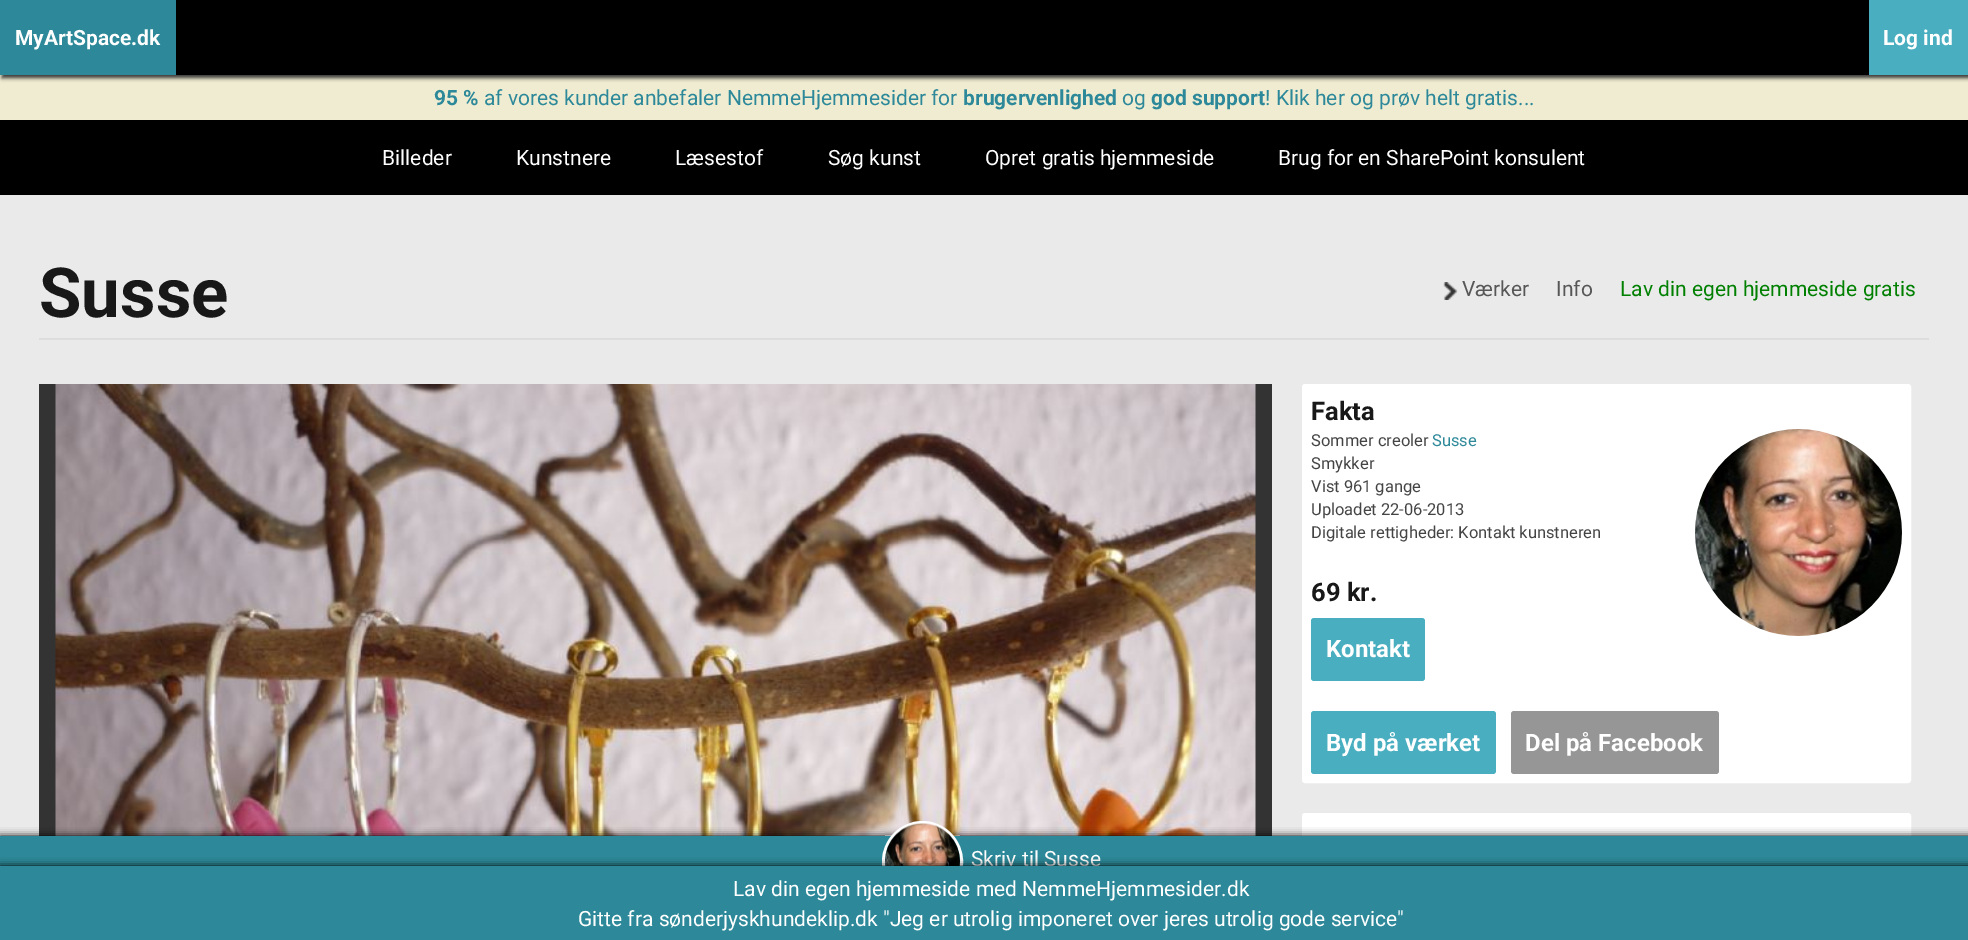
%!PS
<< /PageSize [1968 940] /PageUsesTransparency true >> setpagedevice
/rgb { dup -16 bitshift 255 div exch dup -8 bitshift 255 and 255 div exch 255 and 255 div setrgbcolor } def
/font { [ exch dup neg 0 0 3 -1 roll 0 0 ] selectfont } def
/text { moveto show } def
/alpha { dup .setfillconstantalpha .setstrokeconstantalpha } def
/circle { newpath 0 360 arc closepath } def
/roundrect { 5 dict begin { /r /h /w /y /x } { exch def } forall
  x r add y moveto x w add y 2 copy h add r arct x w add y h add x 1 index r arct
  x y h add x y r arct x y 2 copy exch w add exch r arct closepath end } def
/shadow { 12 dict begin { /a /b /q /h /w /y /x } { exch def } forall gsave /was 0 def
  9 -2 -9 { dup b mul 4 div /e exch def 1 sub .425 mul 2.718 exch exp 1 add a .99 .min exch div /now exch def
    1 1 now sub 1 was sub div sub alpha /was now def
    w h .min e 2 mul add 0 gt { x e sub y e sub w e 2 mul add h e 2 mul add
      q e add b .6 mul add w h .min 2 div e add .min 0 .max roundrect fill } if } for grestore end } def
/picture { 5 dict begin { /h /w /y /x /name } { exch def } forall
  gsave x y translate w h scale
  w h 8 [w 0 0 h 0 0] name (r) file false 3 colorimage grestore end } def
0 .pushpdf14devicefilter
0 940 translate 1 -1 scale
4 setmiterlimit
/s1 { /Roboto-Bold 21 font 16#FFFFFF rgb } def
/s2 { /Roboto-Bold 21 font 16#2D8999 rgb } def
/s3 { /Roboto-Regular 21 font 16#2D8999 rgb } def
/s4 { /Roboto-Regular 21 font 16#FFFFFF rgb } def
/s5 { /Roboto-Bold 69 font 16#181818 rgb } def
/s6 { /Roboto-Regular 21 font 16#575757 rgb } def
/s7 { /Roboto-Regular 21 font 16#008000 rgb } def
/s8 { /Roboto-Bold 25.5 font 16#181818 rgb } def
/s9 { /Roboto-Regular 16.5 font 16#444444 rgb } def
/s10 { /Roboto-Regular 16.5 font 16#2D8999 rgb } def
/s11 { /Roboto-Bold 24 font 16#FFFFFF rgb } def
16#EAEAEA rgb
0 0 1968 940 rectfill
16#EFECD1 rgb
0 75 1968 45 rectfill
16#333333 rgb
2 3 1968 75 0 2 1 shadow
16#000000 rgb
176 0 1693 75 rectfill
16#2D8999 rgb
0 0 176 75 rectfill
s1
(MyArtSpace.dk) 15 45 text
16#49AEC0 rgb
1869 0 99 75 rectfill
s1
(Log ind) 1883 45 text
s2
(95 %) 434 105 text
s3
(af vores kunder anbefaler NemmeHjemmesider for) 484 105 text
s2
(brugervenlighed) 963 105 text
s3
(og) 1122 105 text
s2
(god support) 1151 105 text
s3
(! Klik her og prøv helt gratis...) 1265 105 text
16#000000 rgb
0 120 1968 75 rectfill
s4
(Billeder) 382 165 text
(Kunstnere) 516 165 text
(Læsestof) 675 165 text
(Søg kunst) 828 165 text
(Opret gratis hjemmeside) 985 165 text
(Brug for en SharePoint konsulent) 1278 165 text
s5
(Susse) 39 317 text
(pic1.raw) 1443 282 15 18 picture
s6
(Værker) 1462 296 text
(Info) 1556 296 text
s7
(Lav din egen hjemmeside gratis) 1620 296 text
16#DDDDDD rgb
39 338 1890 2 rectfill
16#333333 rgb
39 384 1233 452 rectfill
(pic2.raw) 55 384 1201 452 picture
16#FFFFFF rgb
1303 385 607 397 2 roundrect gsave fill grestore
2 setlinewidth
stroke
s8
(Fakta) 1311 420 text
s9
(Sommer creoler) 1311 446 text
s10
(Susse) 1432 446 text
s9
(Smykker) 1311 469 text
(Vist 961 gange) 1311 492 text
(Uploadet 22-06-2013) 1311 515 text
(Digitale rettigheder: Kontakt kunstneren) 1311 538 text
(pic3.raw) 1695 429 207 207 picture
s8
(69 kr.) 1311 601 text
16#49AEC0 rgb
1311 618 114 63 3 roundrect fill
s11
(Kontakt) 1326 657 text
16#49AEC0 rgb
1311 711 185 63 3 roundrect fill
s11
(Byd på værket) 1326 751 text
16#969696 rgb
1511 711 208 63 3 roundrect fill
s11
(Del på Facebook) 1525 751 text
1303 814 607 106 2 roundrect gsave fill grestore
stroke
16#000000 rgb
0 836 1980 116 0 4 1 shadow
16#2D8999 rgb
0 836 1968 30 rectfill
16#FFFFFF rgb
3 setlinewidth
922.5 861.5 39 circle stroke
(pic4.raw) 885 823 75 43 picture
s4
(Skriv til Susse) 971 866 text
16#000000 rgb
0 866 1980 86 0 4 1 shadow
16#2D8999 rgb
0 866 1968 74 rectfill
s4
(Lav din egen hjemmeside med NemmeHjemmesider.dk) 733 896 text
(Gitte fra sønderjyskhundeklip.dk "Jeg er utrolig imponeret over jeres utrolig gode service") 578 926 text
.poppdf14devicefilter showpage
